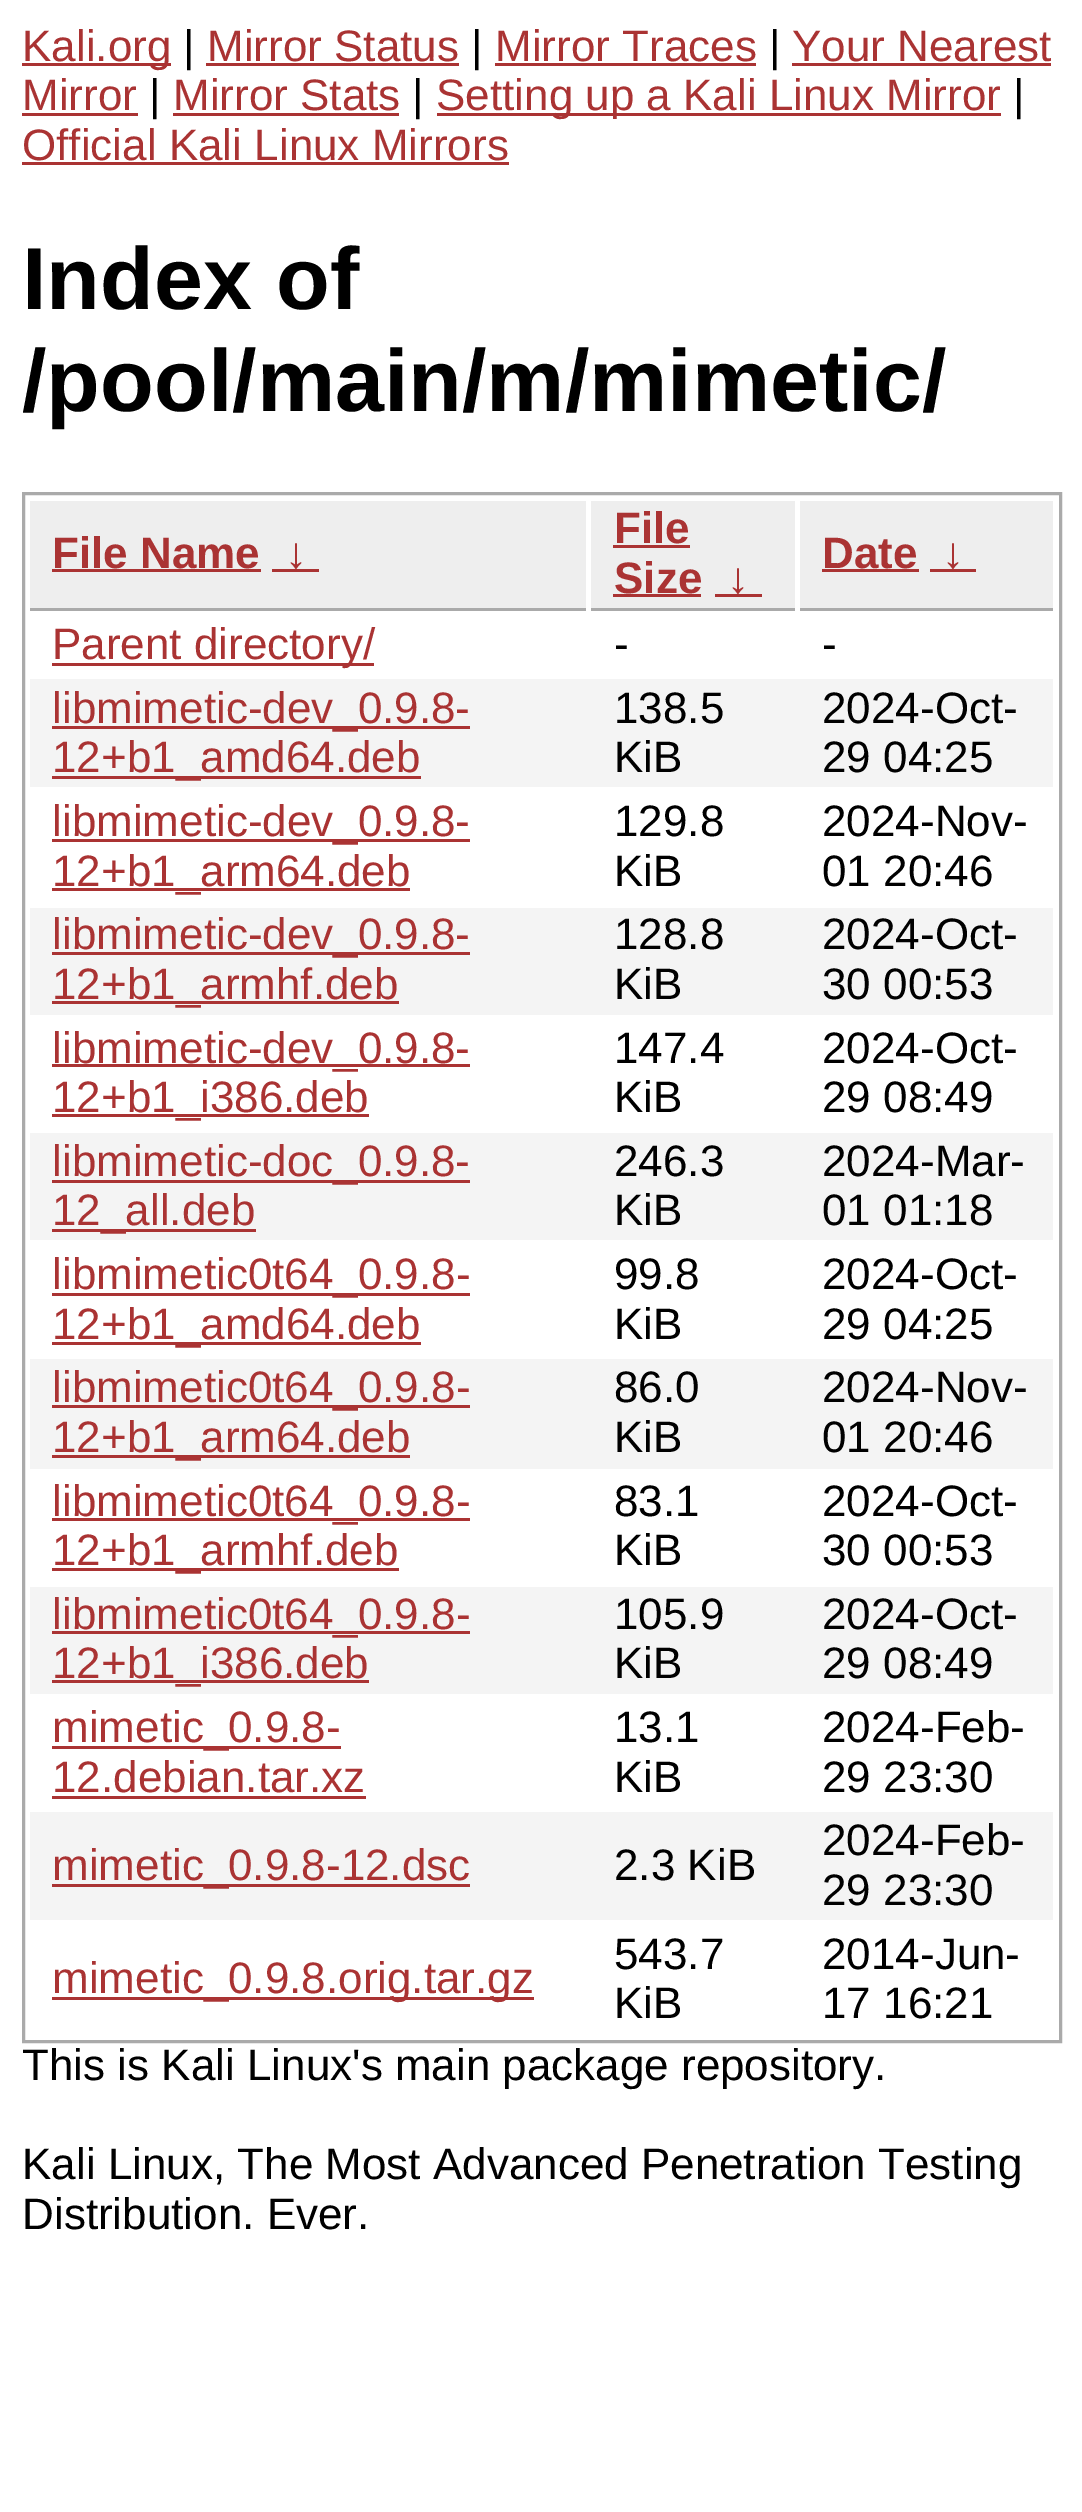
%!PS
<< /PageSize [1082 2512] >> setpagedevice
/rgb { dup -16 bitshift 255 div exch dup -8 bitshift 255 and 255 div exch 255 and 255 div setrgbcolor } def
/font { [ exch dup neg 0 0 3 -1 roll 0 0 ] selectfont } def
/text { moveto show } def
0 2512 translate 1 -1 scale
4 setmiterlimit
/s1 { /LiberationSans-Regular 44 font 16#AA3333 rgb } def
/s2 { /LiberationSans-Regular 44 font 16#000000 rgb } def
/s3 { /LiberationSans-Bold 88 font 16#000000 rgb } def
/s4 { /LiberationSans-Bold 44 font 16#AA3333 rgb } def
16#FFFFFF rgb
0 0 1082 2512 rectfill
16#AA3333 rgb
22 63 149 3 rectfill
s1
(Kali.org) 22 61 text
s2
(|) 183 61 text
s1
(Mirror Status) 207 61 text
206 63 253 3 rectfill
s2
(|) 471 61 text
s1
(Mirror Traces) 495 61 text
495 63 261 3 rectfill
s2
(|) 769 61 text
s1
(Your Nearest) 792 61 text
792 63 259 3 rectfill
(Mirror) 22 110 text
22 113 116 3 rectfill
s2
(|) 149 110 text
s1
(Mirror Stats) 173 110 text
173 113 226 3 rectfill
s2
(|) 412 110 text
16#AA3333 rgb
437 113 564 3 rectfill
(Setting up a Kali Linux Mirror) 436 110 text
s2
(|) 1013 110 text
s1
(Official Kali Linux Mirrors) 22 160 text
22 162 487 3 rectfill
s3
(Index of) 22 309 text
(/pool/main/m/mimetic/) 22 411 text
16#AAAAAA rgb
3 setlinewidth
23.5 493.5 1037 1548 rectstroke
16#EEEEEE rgb
30 501 556 107 rectfill
16#AAAAAA rgb
30 608 556 3 rectfill
s4
(File Name) 52 568 text
52 569 209 3 rectfill
272 569 47 3 rectfill
(↓) 285 568 text
16#EEEEEE rgb
591 501 204 107 rectfill
16#AAAAAA rgb
591 608 204 3 rectfill
s4
(File) 614 543 text
613 545 77 3 rectfill
(Size) 614 593 text
613 594 88 3 rectfill
715 594 47 3 rectfill
(↓) 727 593 text
16#EEEEEE rgb
800 501 253 107 rectfill
16#AAAAAA rgb
800 608 253 3 rectfill
s4
(Date) 822 568 text
822 569 97 3 rectfill
930 569 46 3 rectfill
(↓) 942 568 text
52 663 322 3 rectfill
s1
(Parent directory/) 52 659 text
s2
(-) 614 659 text
(-) 822 659 text
16#F4F4F4 rgb
30 679 1023 108 rectfill
16#AA3333 rgb
52 726 418 3 rectfill
(libmimetic-dev_0.9.8-) 52 723 text
52 776 369 3 rectfill
(12+b1_amd64.deb) 52 772 text
s2
(138.5) 614 723 text
(KiB) 614 772 text
(2024-Oct-) 822 723 text
(29 04:25) 822 772 text
16#AA3333 rgb
52 839 418 3 rectfill
(libmimetic-dev_0.9.8-) 52 836 text
52 888 358 3 rectfill
(12+b1_arm64.deb) 52 886 text
s2
(129.8) 614 836 text
(KiB) 614 886 text
(2024-Nov-) 822 836 text
(01 20:46) 822 886 text
16#F4F4F4 rgb
30 908 1023 107 rectfill
16#AA3333 rgb
52 952 418 3 rectfill
(libmimetic-dev_0.9.8-) 52 949 text
52 1001 347 3 rectfill
(12+b1_armhf.deb) 52 999 text
s2
(128.8) 614 949 text
(KiB) 614 999 text
(2024-Oct-) 822 949 text
(30 00:53) 822 999 text
16#AA3333 rgb
52 1064 418 3 rectfill
(libmimetic-dev_0.9.8-) 52 1063 text
52 1114 317 3 rectfill
(12+b1_i386.deb) 52 1112 text
s2
(147.4) 614 1063 text
(KiB) 614 1112 text
(2024-Oct-) 822 1063 text
(29 08:49) 822 1112 text
16#F4F4F4 rgb
30 1133 1023 107 rectfill
16#AA3333 rgb
52 1180 418 3 rectfill
(libmimetic-doc_0.9.8-) 52 1176 text
52 1229 204 3 rectfill
(12_all.deb) 52 1225 text
s2
(246.3) 614 1176 text
(KiB) 614 1225 text
(2024-Mar-) 822 1176 text
(01 01:18) 822 1225 text
16#AA3333 rgb
52 1293 418 3 rectfill
(libmimetic0t64_0.9.8-) 52 1289 text
52 1342 369 3 rectfill
(12+b1_amd64.deb) 52 1339 text
s2
(99.8) 614 1289 text
(KiB) 614 1339 text
(2024-Oct-) 822 1289 text
(29 04:25) 822 1339 text
16#F4F4F4 rgb
30 1359 1023 110 rectfill
16#AA3333 rgb
52 1405 418 3 rectfill
(libmimetic0t64_0.9.8-) 52 1402 text
52 1455 358 3 rectfill
(12+b1_arm64.deb) 52 1452 text
s2
(86.0) 614 1402 text
(KiB) 614 1452 text
(2024-Nov-) 822 1402 text
(01 20:46) 822 1452 text
16#AA3333 rgb
52 1518 418 3 rectfill
(libmimetic0t64_0.9.8-) 52 1516 text
52 1568 347 3 rectfill
(12+b1_armhf.deb) 52 1565 text
s2
(83.1) 614 1516 text
(KiB) 614 1565 text
(2024-Oct-) 822 1516 text
(30 00:53) 822 1565 text
16#F4F4F4 rgb
30 1587 1023 107 rectfill
16#AA3333 rgb
52 1631 418 3 rectfill
(libmimetic0t64_0.9.8-) 52 1629 text
52 1680 317 3 rectfill
(12+b1_i386.deb) 52 1678 text
s2
(105.9) 614 1629 text
(KiB) 614 1678 text
(2024-Oct-) 822 1629 text
(29 08:49) 822 1678 text
16#AA3333 rgb
52 1746 289 3 rectfill
(mimetic_0.9.8-) 52 1742 text
(12.debian.tar.xz) 52 1792 text
52 1796 314 3 rectfill
s2
(13.1) 614 1742 text
(KiB) 614 1792 text
(2024-Feb-) 822 1742 text
(29 23:30) 822 1792 text
16#F4F4F4 rgb
30 1812 1023 108 rectfill
16#AA3333 rgb
52 1884 418 3 rectfill
(mimetic_0.9.8-12.dsc) 52 1880 text
s2
(2.3 KiB) 614 1880 text
(2024-Feb-) 822 1855 text
(29 23:30) 822 1905 text
16#AA3333 rgb
52 1997 482 3 rectfill
(mimetic_0.9.8.orig.tar.gz) 52 1993 text
s2
(543.7) 614 1969 text
(KiB) 614 2018 text
(2014-Jun-) 822 1969 text
(17 16:21) 822 2018 text
(This is Kali Linux's main package repository.) 22 2080 text
(Kali Linux, The Most Advanced Penetration Testing) 22 2179 text
(Distribution. Ever.) 22 2229 text
showpage
